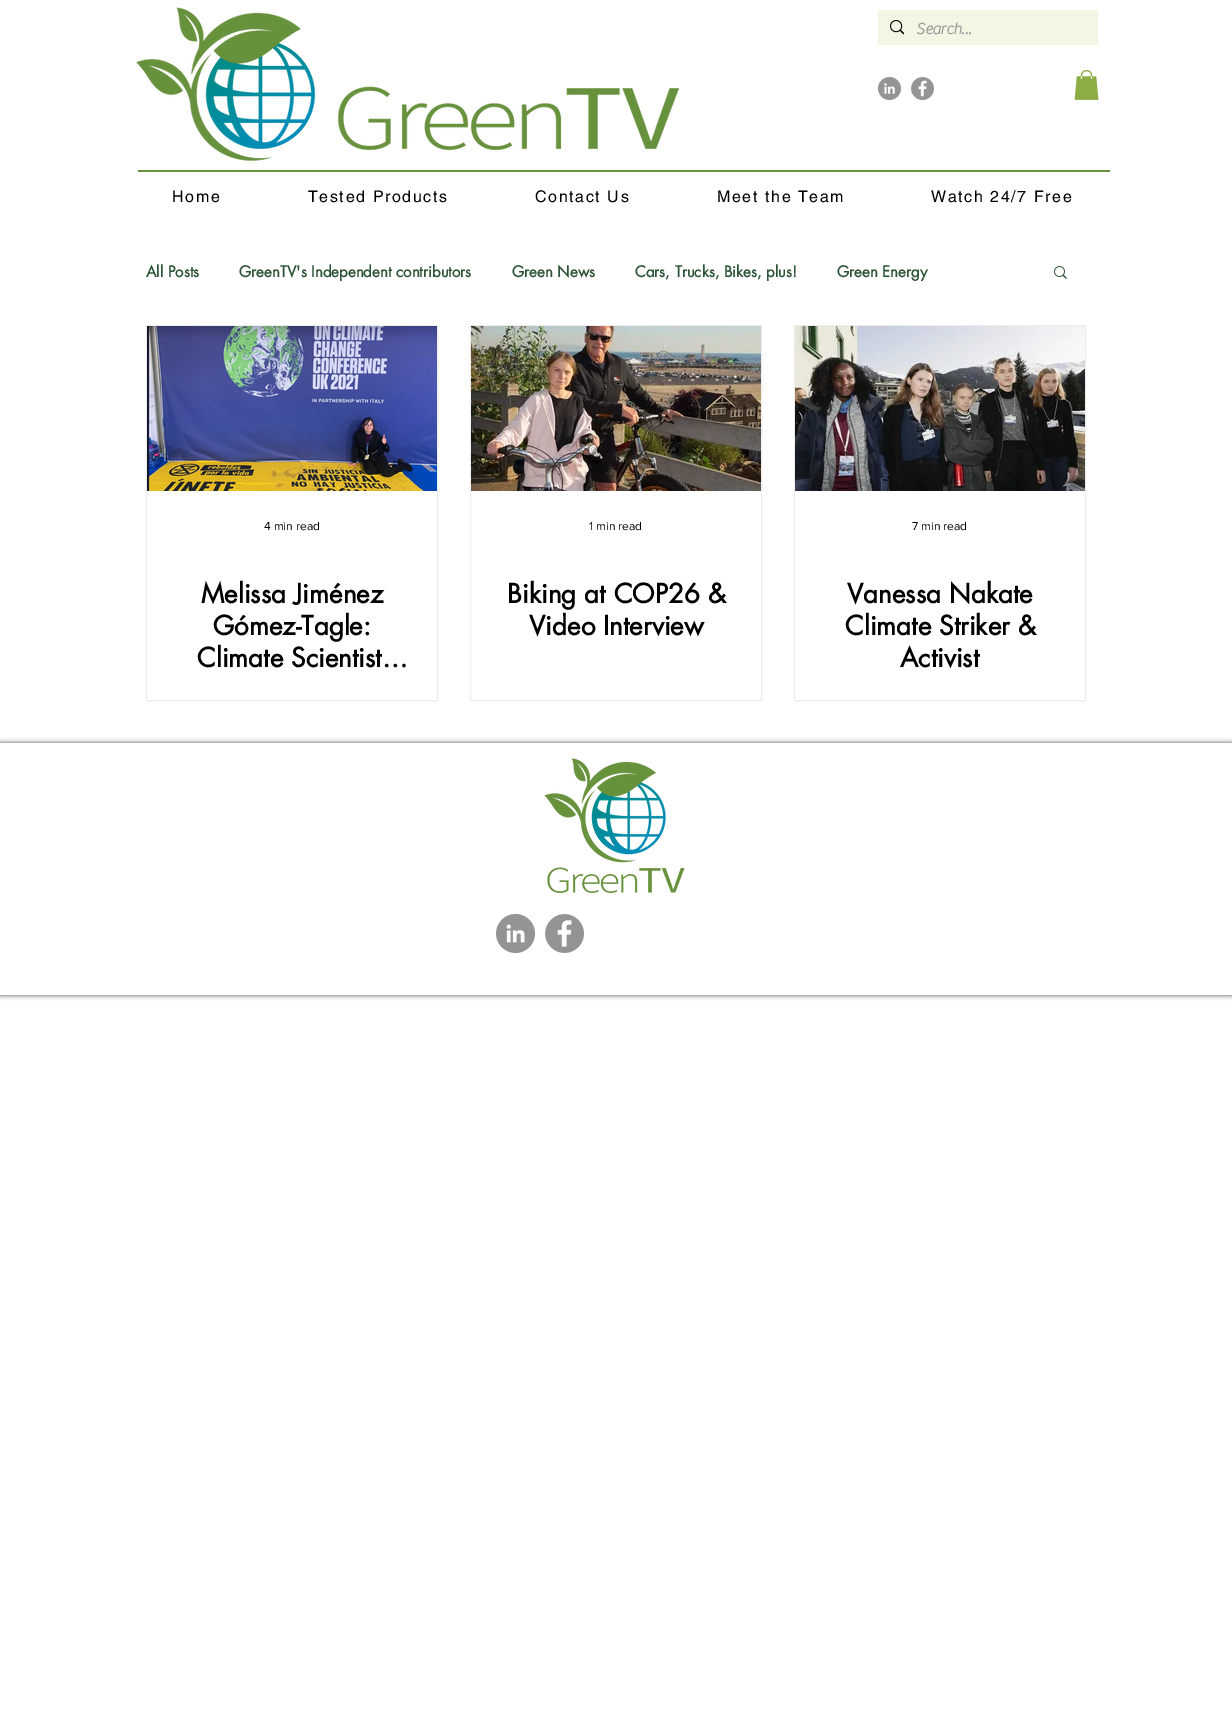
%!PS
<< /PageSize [1232 1722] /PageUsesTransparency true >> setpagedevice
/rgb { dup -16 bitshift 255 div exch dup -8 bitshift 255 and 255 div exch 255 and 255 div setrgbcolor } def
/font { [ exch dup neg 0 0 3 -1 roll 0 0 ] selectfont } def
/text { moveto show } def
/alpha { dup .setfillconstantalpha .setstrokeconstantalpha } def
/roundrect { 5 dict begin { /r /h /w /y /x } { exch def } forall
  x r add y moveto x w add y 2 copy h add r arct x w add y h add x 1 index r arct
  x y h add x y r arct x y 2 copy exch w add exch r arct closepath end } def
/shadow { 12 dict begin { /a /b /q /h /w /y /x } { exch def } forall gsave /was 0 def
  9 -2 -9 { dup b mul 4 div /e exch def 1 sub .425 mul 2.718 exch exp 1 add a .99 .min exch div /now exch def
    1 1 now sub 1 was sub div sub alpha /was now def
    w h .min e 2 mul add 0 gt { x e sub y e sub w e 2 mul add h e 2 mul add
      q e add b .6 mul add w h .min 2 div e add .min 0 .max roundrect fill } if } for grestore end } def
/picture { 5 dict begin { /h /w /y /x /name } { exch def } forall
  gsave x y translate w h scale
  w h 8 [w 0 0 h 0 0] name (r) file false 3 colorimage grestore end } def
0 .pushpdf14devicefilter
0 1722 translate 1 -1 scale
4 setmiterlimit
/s1 { /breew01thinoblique-Bold 16 font 16#999999 rgb } def
/s2 { /futura-Bold 15 font 16#2B5336 rgb } def
/s3 { /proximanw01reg-Regular 12 font 16#000000 rgb } def
/s4 { /futura-Bold 26 font 16#000000 rgb } def
16#FFFFFF rgb
0 0 1232 1722 rectfill
(pic1.raw) 136 7 544 156 picture
16#F2F7E3 rgb
878 10 220 35 rectfill
(pic2.raw) 890 20 14 15 picture
s1
(Search...) 916 34 text
(pic3.raw) 878 77 23 23 picture
(pic4.raw) 911 77 23 23 picture
(pic5.raw) 1074 70 25 30 picture
16#67923C rgb
138 170 972 2 rectfill
/helvetica-Regular 16 font
16#000000 rgb
172 202 moveto 1.6 0 (Home) ashow
308 202 moveto 1.6 0 (Tested Products) ashow
535 202 moveto 1.6 0 (Contact Us) ashow
717 202 moveto 1.6 0 (Meet the Team) ashow
931 202 moveto 1.6 0 (Watch 24/7 Free) ashow
s2
(All Posts) 146 277 text
(GreenTV's Independent contributors) 239 277 text
(Green News) 512 277 text
(Cars, Trucks, Bikes, plus!) 635 277 text
(Green Energy) 837 277 text
(pic6.raw) 1054 266 13 13 picture
16#EEECEC rgb
146.5 325.5 291 375 rectstroke
(pic7.raw) 147 326 290 165 picture
s3
(4 min read) 264 530 text
s4
(Melissa Jiménez) 201 603 text
(Gómez-Tagle:) 213 635 text
(Climate Scientist…) 197 667 text
16#EEECEC rgb
470.5 325.5 291 375 rectstroke
(pic8.raw) 471 326 290 165 picture
s3
(1 min read) 589 530 text
s4
(Biking at COP26 &) 507 603 text
(Video Interview) 529 635 text
16#EEECEC rgb
794.5 325.5 291 375 rectstroke
(pic9.raw) 795 326 290 165 picture
s3
(7 min read) 912 530 text
s4
(Vanessa Nakate) 847 603 text
(Climate Striker &) 845 635 text
(Activist) 900 667 text
gsave
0 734 moveto 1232 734 lineto 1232 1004 lineto 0 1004 lineto closepath 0 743 moveto 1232 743 lineto 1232 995 lineto 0 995 lineto closepath eoclip newpath
0 743 1232 252 0 2.5 0.7 shadow
grestore
(pic10.raw) 544 758 141 135 picture
(pic11.raw) 496 914 39 39 picture
(pic12.raw) 545 914 39 39 picture
.poppdf14devicefilter showpage
